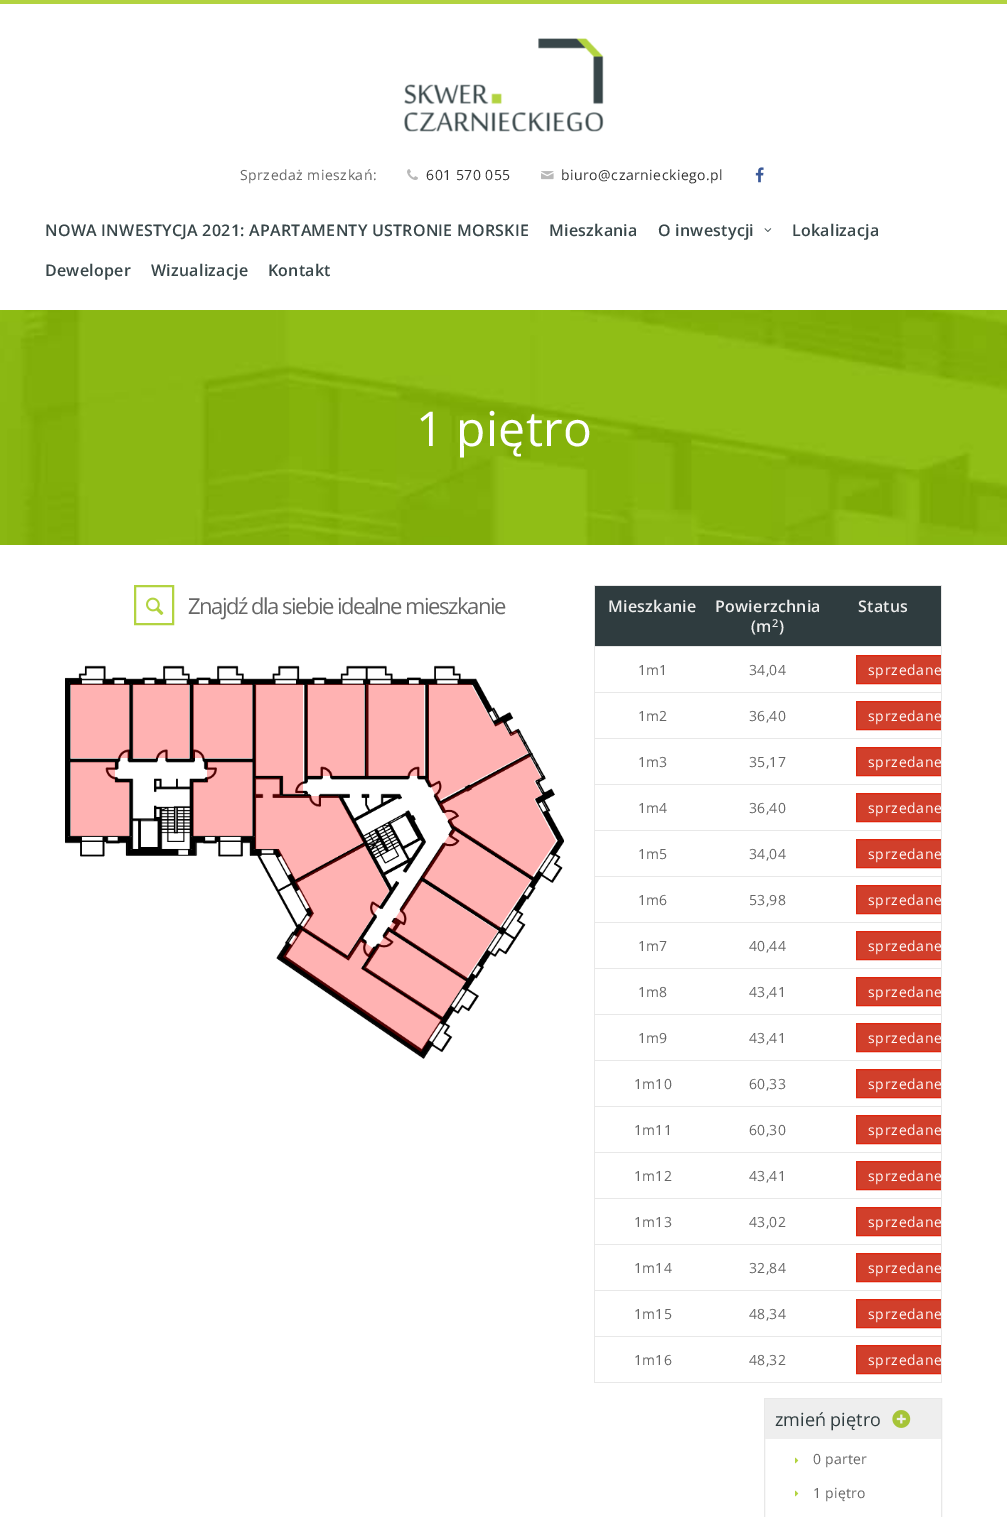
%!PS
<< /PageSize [1007 1517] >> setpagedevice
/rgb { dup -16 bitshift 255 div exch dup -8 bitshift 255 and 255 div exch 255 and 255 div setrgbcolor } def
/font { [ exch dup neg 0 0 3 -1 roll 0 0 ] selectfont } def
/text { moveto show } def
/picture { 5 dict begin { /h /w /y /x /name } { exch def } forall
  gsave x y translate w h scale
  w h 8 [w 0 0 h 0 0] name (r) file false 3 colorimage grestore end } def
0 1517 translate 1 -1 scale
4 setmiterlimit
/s1 { /OpenSans-Regular 18 font 16#2F3C3F rgb } def
16#FFFFFF rgb
0 0 1007 1517 rectfill
16#B2D340 rgb
0 0 1007 4 rectfill
(pic1.raw) 404 38 200 94 picture
/OpenSans-Regular 14 font
16#666666 rgb
240 180 moveto 0.5 0 (Sprzedaż mieszkań:) ashow
(pic2.raw) 407 169 11 11 picture
16#333333 rgb
426 180 moveto 0.5 0 (601 570 055) ashow
(pic3.raw) 541 171 13 9 picture
561 180 moveto 0.5 0 (biuro@czarnieckiego.pl) ashow
(pic4.raw) 755 167 9 16 picture
/OpenSans-SemiBold 16 font
16#384649 rgb
45 236 moveto 0.25 0 (NOWA INWESTYCJA 2021: APARTAMENTY USTRONIE MORSKIE) ashow
549 236 moveto 0.25 0 (Mieszkania) ashow
658 236 moveto 0.25 0 (O inwestycji) ashow
(pic5.raw) 764 228 8 4 picture
792 236 moveto 0.25 0 (Lokalizacja) ashow
45 276 moveto 0.25 0 (Deweloper) ashow
151 276 moveto 0.25 0 (Wizualizacje) ashow
268 276 moveto 0.25 0 (Kontakt) ashow
(pic6.raw) 0 310 1007 235 picture
/OpenSans-Regular 48 font
16#FFFFFF rgb
416 446 moveto 0.25 0 (1 piętro) ashow
16#B2D340 rgb
2 setlinewidth
135 586 38 38 rectstroke
(pic7.raw) 146 597 18 18 picture
/OpenSans-Regular 22 font
16#666666 rgb
188 614 moveto -1.5 0 (Znajdź dla siebie idealne mieszkanie) ashow
(pic8.raw) 65 665 499 394 picture
(pic9.raw) 71 684 485 368 picture
16#E8E8E8 rgb
594 585 348 1 rectfill
941 585 1 798 rectfill
594 1382 348 1 rectfill
594 585 1 798 rectfill
16#2F3C3F rgb
595 586 346 60 rectfill
/OpenSans-SemiBold 16 font
16#EEEEEE rgb
608 612 moveto 0.25 0 (Mieszkanie) ashow
715 612 moveto 0.25 0 (Powierzchnia) ashow
751 632 moveto 0.25 0 (\(m) ashow
/OpenSans-SemiBold 11 font
772 627 moveto 0.25 0 (2) ashow
/OpenSans-SemiBold 16 font
779 632 moveto 0.25 0 (\)) ashow
858 612 moveto 0.25 0 (Status) ashow
16#E8E8E8 rgb
595 646 346 1 rectfill
/OpenSans-Regular 14 font
16#666666 rgb
638 675 moveto 0.25 0 (1m1) ashow
749 675 moveto 0.25 0 (34,04) ashow
16#D13F2B rgb
857 656 84 27 rectfill
gsave
595 586 346 796 rectclip
16#E0240B rgb
1 setlinewidth
856.5 655.5 99 28 rectstroke
16#FFFFFF rgb
868 675 moveto 0.75 0 (sprzedane) ashow
grestore
16#E8E8E8 rgb
595 692 346 1 rectfill
16#666666 rgb
638 721 moveto 0.25 0 (1m2) ashow
749 721 moveto 0.25 0 (36,40) ashow
16#D13F2B rgb
857 702 84 27 rectfill
gsave
595 586 346 796 rectclip
16#E0240B rgb
1 setlinewidth
856.5 701.5 99 28 rectstroke
16#FFFFFF rgb
868 721 moveto 0.75 0 (sprzedane) ashow
grestore
16#E8E8E8 rgb
595 738 346 1 rectfill
16#666666 rgb
638 767 moveto 0.25 0 (1m3) ashow
749 767 moveto 0.25 0 (35,17) ashow
16#D13F2B rgb
857 748 84 27 rectfill
gsave
595 586 346 796 rectclip
16#E0240B rgb
1 setlinewidth
856.5 747.5 99 28 rectstroke
16#FFFFFF rgb
868 767 moveto 0.75 0 (sprzedane) ashow
grestore
16#E8E8E8 rgb
595 784 346 1 rectfill
16#666666 rgb
638 813 moveto 0.25 0 (1m4) ashow
749 813 moveto 0.25 0 (36,40) ashow
16#D13F2B rgb
857 794 84 27 rectfill
gsave
595 586 346 796 rectclip
16#E0240B rgb
1 setlinewidth
856.5 793.5 99 28 rectstroke
16#FFFFFF rgb
868 813 moveto 0.75 0 (sprzedane) ashow
grestore
16#E8E8E8 rgb
595 830 346 1 rectfill
16#666666 rgb
638 859 moveto 0.25 0 (1m5) ashow
749 859 moveto 0.25 0 (34,04) ashow
16#D13F2B rgb
857 840 84 27 rectfill
gsave
595 586 346 796 rectclip
16#E0240B rgb
1 setlinewidth
856.5 839.5 99 28 rectstroke
16#FFFFFF rgb
868 859 moveto 0.75 0 (sprzedane) ashow
grestore
16#E8E8E8 rgb
595 876 346 1 rectfill
16#666666 rgb
638 905 moveto 0.25 0 (1m6) ashow
749 905 moveto 0.25 0 (53,98) ashow
16#D13F2B rgb
857 886 84 27 rectfill
gsave
595 586 346 796 rectclip
16#E0240B rgb
1 setlinewidth
856.5 885.5 99 28 rectstroke
16#FFFFFF rgb
868 905 moveto 0.75 0 (sprzedane) ashow
grestore
16#E8E8E8 rgb
595 922 346 1 rectfill
16#666666 rgb
638 951 moveto 0.25 0 (1m7) ashow
749 951 moveto 0.25 0 (40,44) ashow
16#D13F2B rgb
857 932 84 27 rectfill
gsave
595 586 346 796 rectclip
16#E0240B rgb
1 setlinewidth
856.5 931.5 99 28 rectstroke
16#FFFFFF rgb
868 951 moveto 0.75 0 (sprzedane) ashow
grestore
16#E8E8E8 rgb
595 968 346 1 rectfill
16#666666 rgb
638 997 moveto 0.25 0 (1m8) ashow
749 997 moveto 0.25 0 (43,41) ashow
16#D13F2B rgb
857 978 84 27 rectfill
gsave
595 586 346 796 rectclip
16#E0240B rgb
1 setlinewidth
856.5 977.5 99 28 rectstroke
16#FFFFFF rgb
868 997 moveto 0.75 0 (sprzedane) ashow
grestore
16#E8E8E8 rgb
595 1014 346 1 rectfill
16#666666 rgb
638 1043 moveto 0.25 0 (1m9) ashow
749 1043 moveto 0.25 0 (43,41) ashow
16#D13F2B rgb
857 1024 84 27 rectfill
gsave
595 586 346 796 rectclip
16#E0240B rgb
1 setlinewidth
856.5 1023.5 99 28 rectstroke
16#FFFFFF rgb
868 1043 moveto 0.75 0 (sprzedane) ashow
grestore
16#E8E8E8 rgb
595 1060 346 1 rectfill
16#666666 rgb
634 1089 moveto 0.25 0 (1m10) ashow
749 1089 moveto 0.25 0 (60,33) ashow
16#D13F2B rgb
857 1070 84 27 rectfill
gsave
595 586 346 796 rectclip
16#E0240B rgb
1 setlinewidth
856.5 1069.5 99 28 rectstroke
16#FFFFFF rgb
868 1089 moveto 0.75 0 (sprzedane) ashow
grestore
16#E8E8E8 rgb
595 1106 346 1 rectfill
16#666666 rgb
634 1135 moveto 0.25 0 (1m11) ashow
749 1135 moveto 0.25 0 (60,30) ashow
16#D13F2B rgb
857 1116 84 27 rectfill
gsave
595 586 346 796 rectclip
16#E0240B rgb
1 setlinewidth
856.5 1115.5 99 28 rectstroke
16#FFFFFF rgb
868 1135 moveto 0.75 0 (sprzedane) ashow
grestore
16#E8E8E8 rgb
595 1152 346 1 rectfill
16#666666 rgb
634 1181 moveto 0.25 0 (1m12) ashow
749 1181 moveto 0.25 0 (43,41) ashow
16#D13F2B rgb
857 1162 84 27 rectfill
gsave
595 586 346 796 rectclip
16#E0240B rgb
1 setlinewidth
856.5 1161.5 99 28 rectstroke
16#FFFFFF rgb
868 1181 moveto 0.75 0 (sprzedane) ashow
grestore
16#E8E8E8 rgb
595 1198 346 1 rectfill
16#666666 rgb
634 1227 moveto 0.25 0 (1m13) ashow
749 1227 moveto 0.25 0 (43,02) ashow
16#D13F2B rgb
857 1208 84 27 rectfill
gsave
595 586 346 796 rectclip
16#E0240B rgb
1 setlinewidth
856.5 1207.5 99 28 rectstroke
16#FFFFFF rgb
868 1227 moveto 0.75 0 (sprzedane) ashow
grestore
16#E8E8E8 rgb
595 1244 346 1 rectfill
16#666666 rgb
634 1273 moveto 0.25 0 (1m14) ashow
749 1273 moveto 0.25 0 (32,84) ashow
16#D13F2B rgb
857 1254 84 27 rectfill
gsave
595 586 346 796 rectclip
16#E0240B rgb
1 setlinewidth
856.5 1253.5 99 28 rectstroke
16#FFFFFF rgb
868 1273 moveto 0.75 0 (sprzedane) ashow
grestore
16#E8E8E8 rgb
595 1290 346 1 rectfill
16#666666 rgb
634 1319 moveto 0.25 0 (1m15) ashow
749 1319 moveto 0.25 0 (48,34) ashow
16#D13F2B rgb
857 1300 84 27 rectfill
gsave
595 586 346 796 rectclip
16#E0240B rgb
1 setlinewidth
856.5 1299.5 99 28 rectstroke
16#FFFFFF rgb
868 1319 moveto 0.75 0 (sprzedane) ashow
grestore
16#E8E8E8 rgb
595 1336 346 1 rectfill
16#666666 rgb
634 1365 moveto 0.25 0 (1m16) ashow
749 1365 moveto 0.25 0 (48,32) ashow
16#D13F2B rgb
857 1346 84 27 rectfill
gsave
595 586 346 796 rectclip
16#E0240B rgb
1 setlinewidth
856.5 1345.5 99 28 rectstroke
16#FFFFFF rgb
868 1365 moveto 0.75 0 (sprzedane) ashow
grestore
16#E8E8E8 rgb
1 setlinewidth
764.5 1398.5 177 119 rectstroke
16#EEEEEE rgb
765 1399 176 40 rectfill
s1
(zmień piętro) 775 1426 text
(pic10.raw) 892 1410 19 18 picture
(pic11.raw) 795 1457 4 7 picture
/OpenSans-Regular 14 font
16#666666 rgb
813 1464 moveto 0.25 0 (0 parter) ashow
(pic11.raw) 795 1490 4 7 picture
813 1498 moveto 0.25 0 (1 piętro) ashow
showpage
